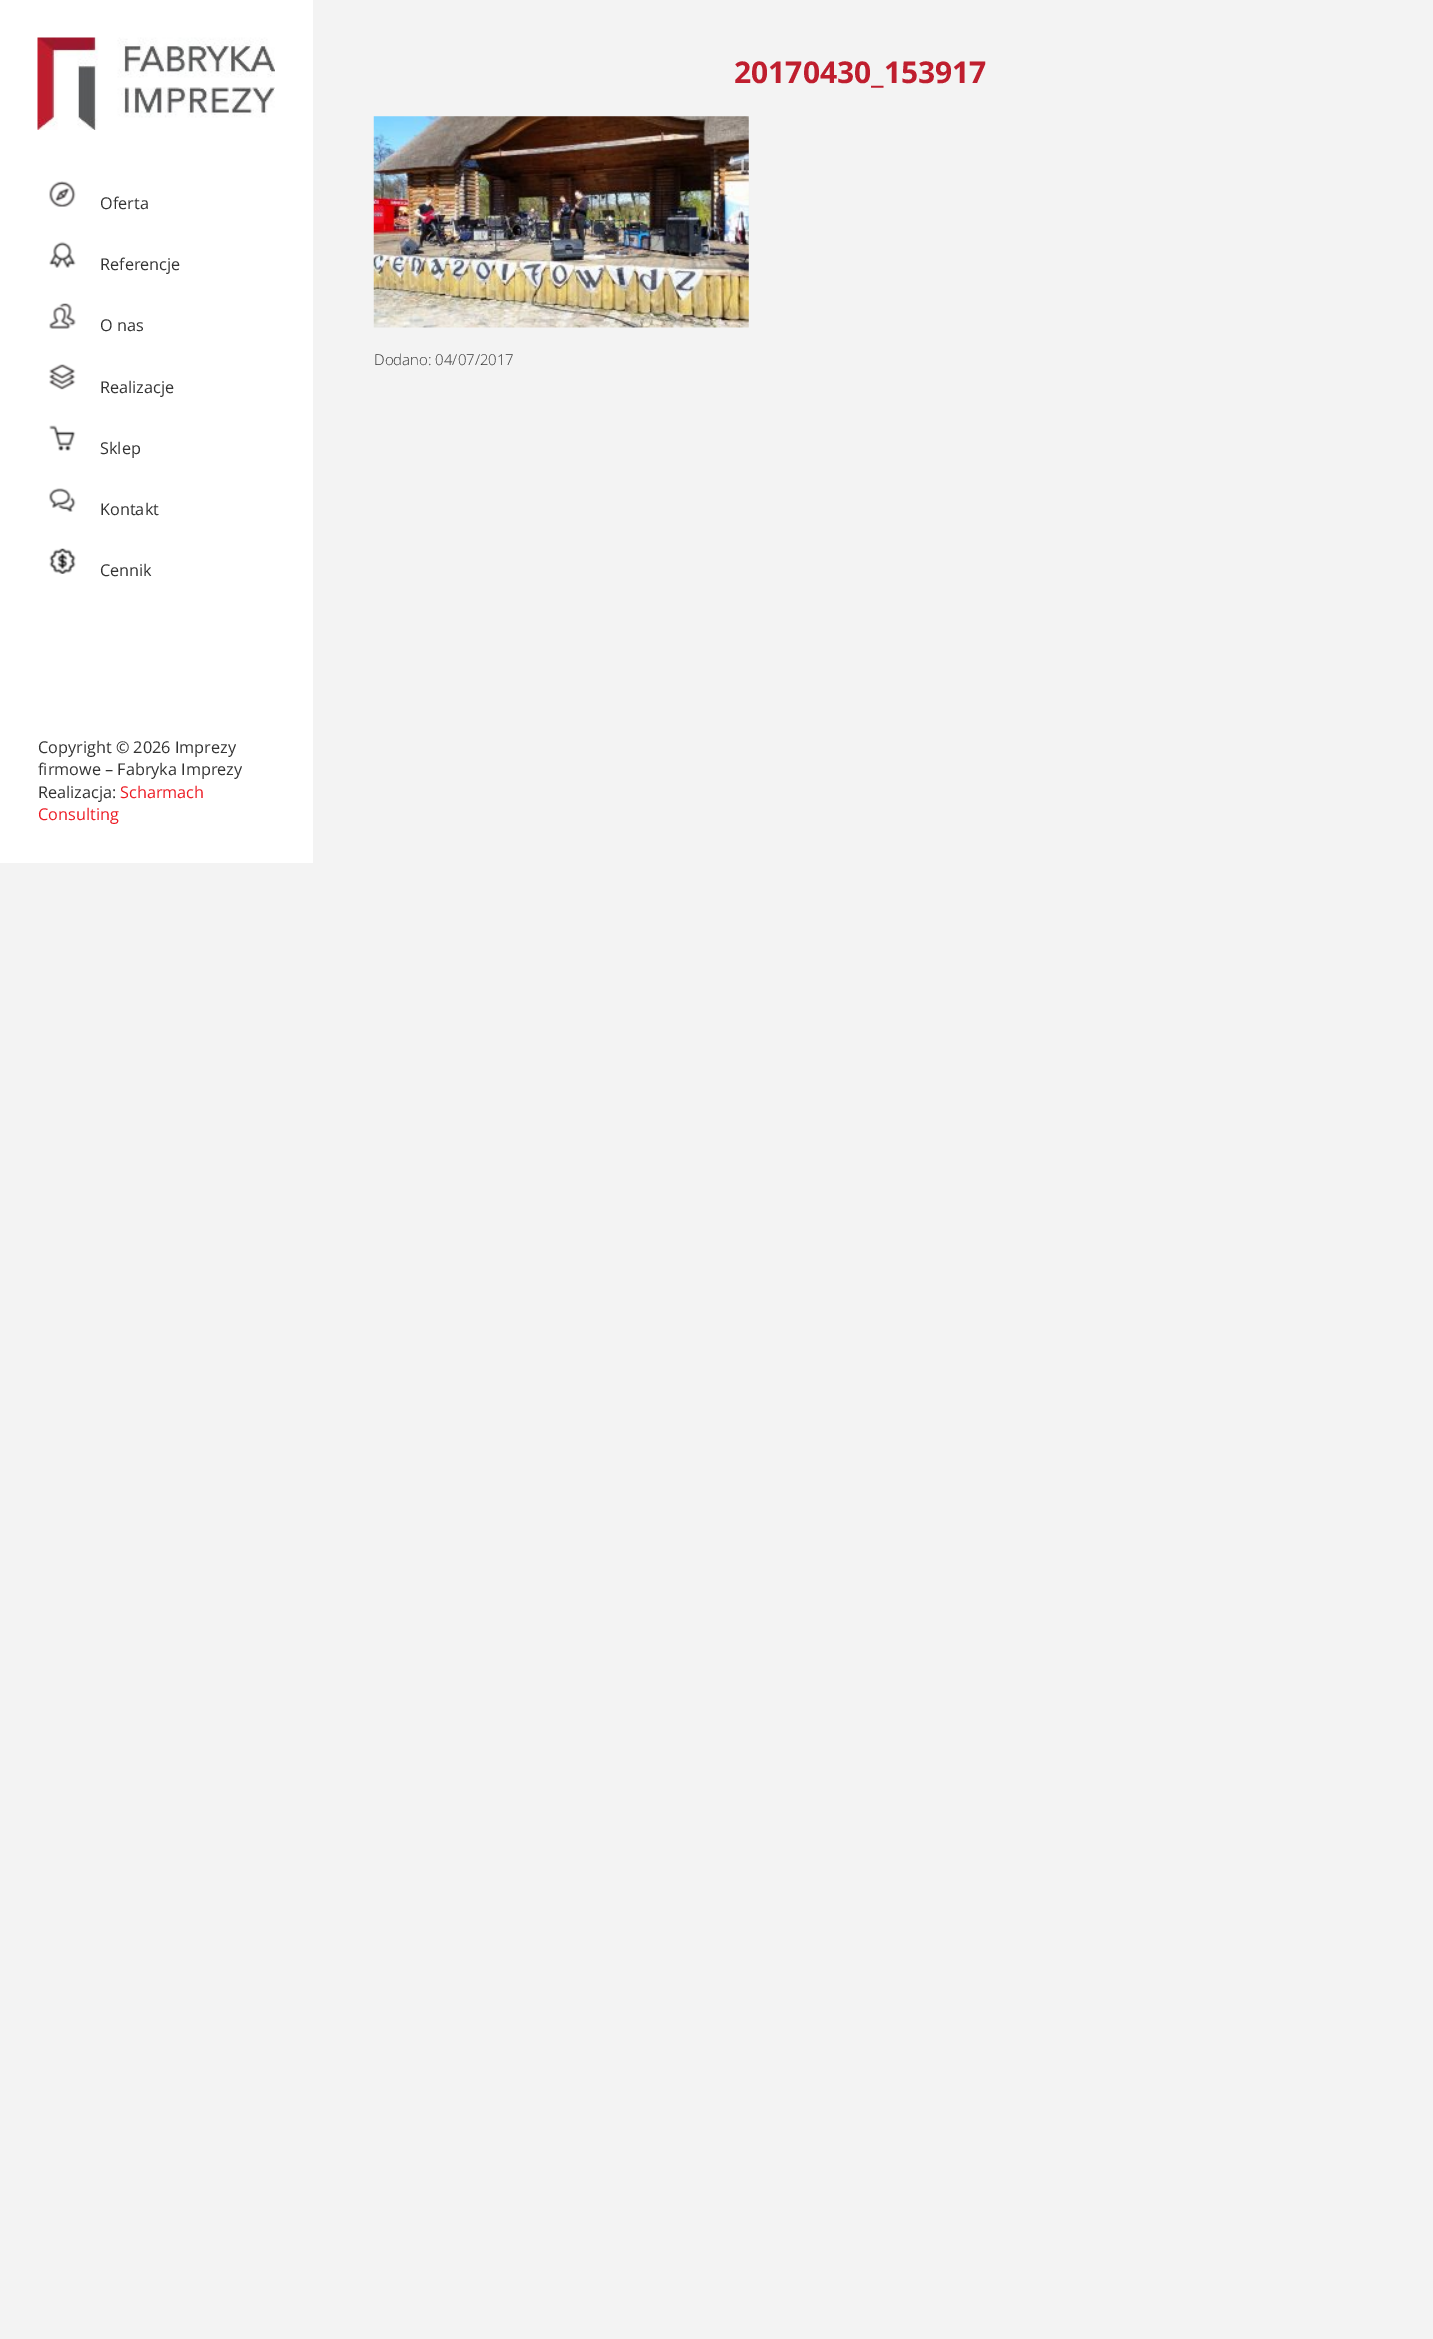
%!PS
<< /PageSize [1433 2339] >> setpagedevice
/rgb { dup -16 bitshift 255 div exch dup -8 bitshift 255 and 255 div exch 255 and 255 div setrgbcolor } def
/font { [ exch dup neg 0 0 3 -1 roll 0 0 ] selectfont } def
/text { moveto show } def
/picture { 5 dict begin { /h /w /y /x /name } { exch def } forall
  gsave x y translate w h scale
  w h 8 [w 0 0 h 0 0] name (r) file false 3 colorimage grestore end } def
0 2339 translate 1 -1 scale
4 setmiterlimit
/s1 { /OpenSans-Regular 16.25 font 16#333333 rgb } def
/s2 { /OpenSans-Regular 16.25 font 16#ED1B24 rgb } def
/s3 { /OpenSans-Bold 30 font 16#BF1E2E rgb } def
/s4 { /OpenSans-Light 15 font 16#333333 rgb } def
16#F3F3F3 rgb
0 0 1433 2339 rectfill
16#FFFFFF rgb
0 0 313 863 rectfill
(pic1.raw) 37 37 238 93 picture
(pic2.raw) 49 181 27 26 picture
s1
(Oferta) 100 209 text
(pic3.raw) 49 241 27 27 picture
(Referencje) 100 270 text
(pic4.raw) 49 303 27 26 picture
(O nas) 100 331 text
(pic5.raw) 49 364 27 26 picture
(Realizacje) 100 393 text
(pic6.raw) 49 425 27 26 picture
(Sklep) 100 454 text
(pic7.raw) 49 488 27 24 picture
(Kontakt) 100 515 text
(pic8.raw) 49 548 27 26 picture
(Cennik) 100 576 text
(Copyright © 2026 Imprezy) 38 753 text
(firmowe – Fabryka Imprezy) 38 775 text
(Realizacja:) 38 798 text
s2
(Scharmach) 120 798 text
(Consulting) 38 820 text
s3
(20170430_153917) 734 83 text
(pic9.raw) 373 116 376 212 picture
s4
(Dodano: 04/07/2017) 374 365 text
showpage
